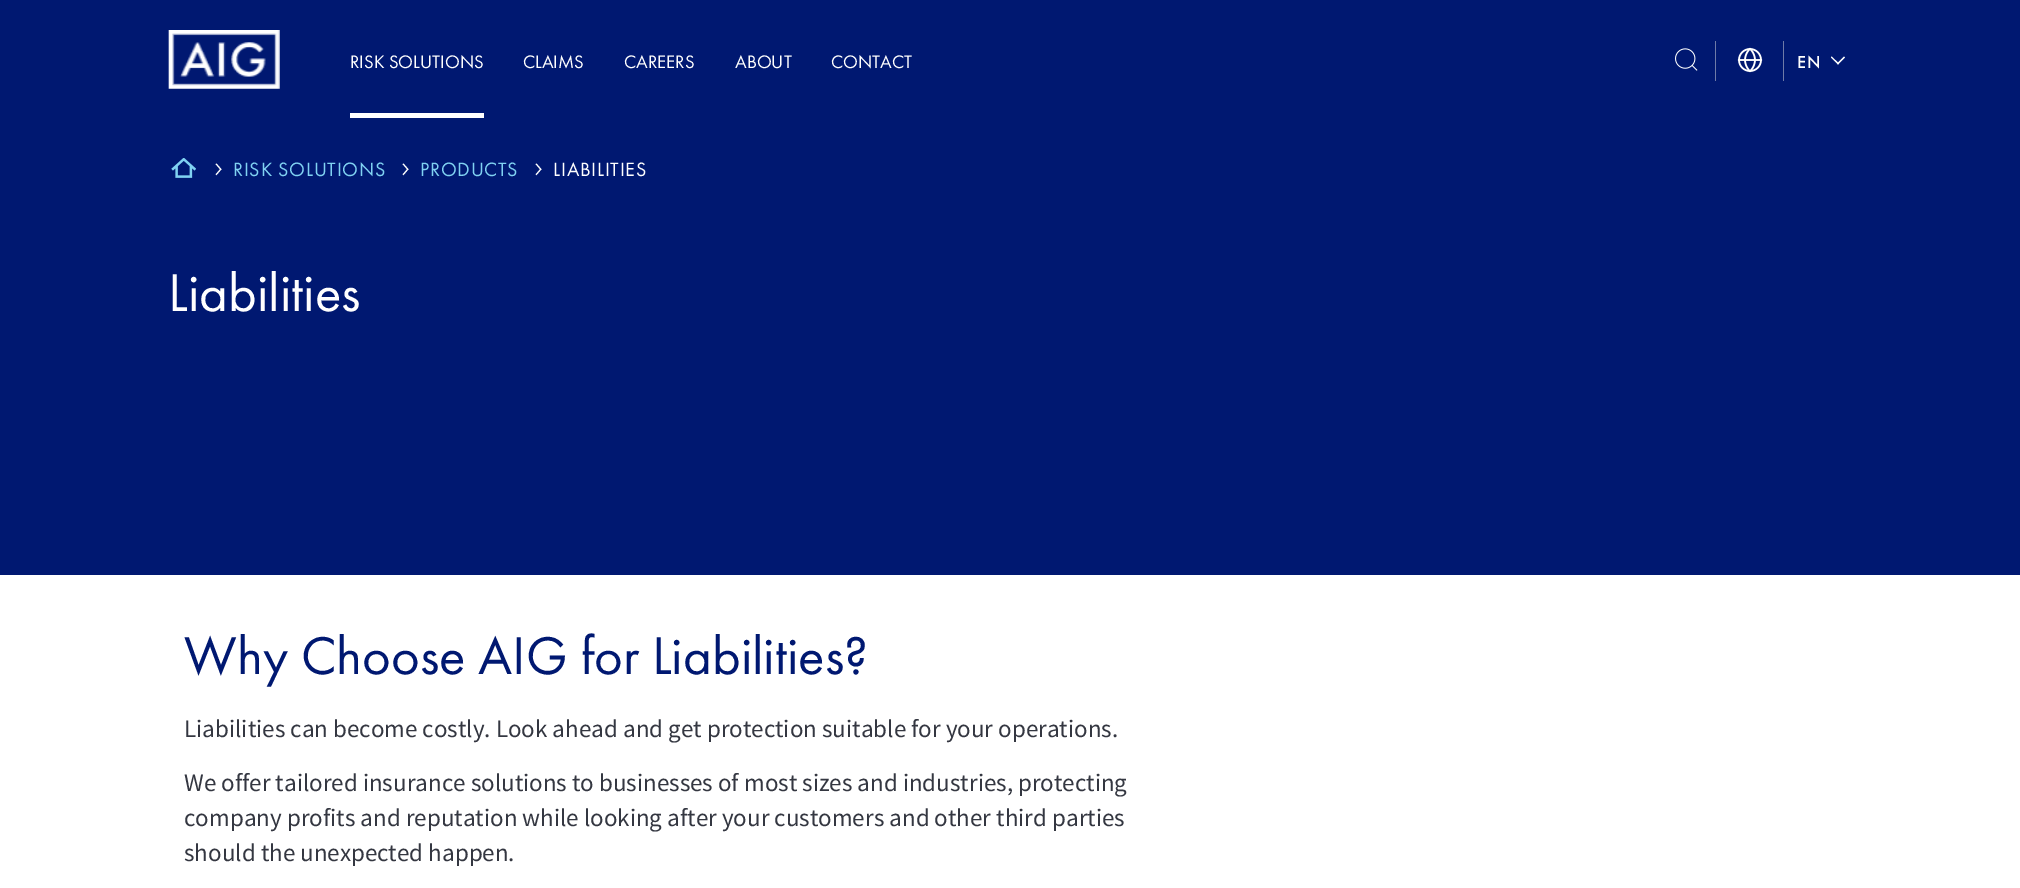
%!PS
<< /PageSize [2020 888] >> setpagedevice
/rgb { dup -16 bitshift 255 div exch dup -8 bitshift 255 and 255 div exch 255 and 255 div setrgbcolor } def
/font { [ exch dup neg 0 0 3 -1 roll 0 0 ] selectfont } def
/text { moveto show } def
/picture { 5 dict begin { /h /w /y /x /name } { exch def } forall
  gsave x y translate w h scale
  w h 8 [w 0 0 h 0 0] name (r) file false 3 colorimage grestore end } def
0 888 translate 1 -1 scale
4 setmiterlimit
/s1 { /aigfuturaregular-Regular 18.75 font 16#FFFFFF rgb } def
/s2 { /FuturaPT-Regular 55 font 16#FFFFFF rgb } def
/s3 { /FuturaPT-Regular 55 font 16#001871 rgb } def
/s4 { /SourceSansPro-Regular 25 font 16#343741 rgb } def
16#FFFFFF rgb
0 0 2020 888 rectfill
16#001871 rgb
0 0 2020 575 rectfill
(pic1.raw) 168 30 112 59 picture
s1
(RISK SOLUTIONS) 350 68 text
350 113 134 5 rectfill
(CLAIMS) 523 68 text
(CAREERS) 624 68 text
(ABOUT) 735 68 text
(CONTACT) 831 68 text
(pic2.raw) 1675 48 23 23 picture
16#6E7AA7 rgb
1715 41 1 40 rectfill
(pic3.raw) 1737 47 26 26 picture
1783 41 1 40 rectfill
/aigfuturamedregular-Regular 18 font
16#FFFFFF rgb
1797 68 moveto 1 0 (EN) ashow
1838 64.5 moveto 1831 57.5 lineto 1831.5 56.5 lineto 1839 63.5 lineto closepath fill
1838 64.5 moveto 1837 63.5 lineto 1844 56.5 lineto 1845 57.5 lineto closepath fill
(pic4.raw) 171 158 25 20 picture
/FuturaPT-Light 40 font
gsave 223 161 translate 180 rotate 0 0 moveto 0.75 0 (‹) ashow grestore
/FuturaPT-Regular 20 font
16#80D2F2 rgb
233 176 moveto 0.75 0 (RISK SOLUTIONS) ashow
/FuturaPT-Light 40 font
16#FFFFFF rgb
gsave 410 161 translate 180 rotate 0 0 moveto 0.75 0 (‹) ashow grestore
/FuturaPT-Regular 20 font
16#80D2F2 rgb
420 176 moveto 0.75 0 (PRODUCTS) ashow
/FuturaPT-Light 40 font
16#FFFFFF rgb
gsave 543 161 translate 180 rotate 0 0 moveto 0.75 0 (‹) ashow grestore
/FuturaPT-Regular 20 font
553 176 moveto 0.75 0 (LIABILITIES) ashow
s2
(Liabilities) 168 311 text
s3
(Why Choose AIG for Liabilities?) 184 674 text
s4
(Liabilities can become costly. Look ahead and get protection suitable for your operations.) 184 737 text
(We offer tailored insurance solutions to businesses of most sizes and industries, protecting) 184 791 text
(company profits and reputation while looking after your customers and other third parties) 184 826 text
(should the unexpected happen.) 184 861 text
showpage
